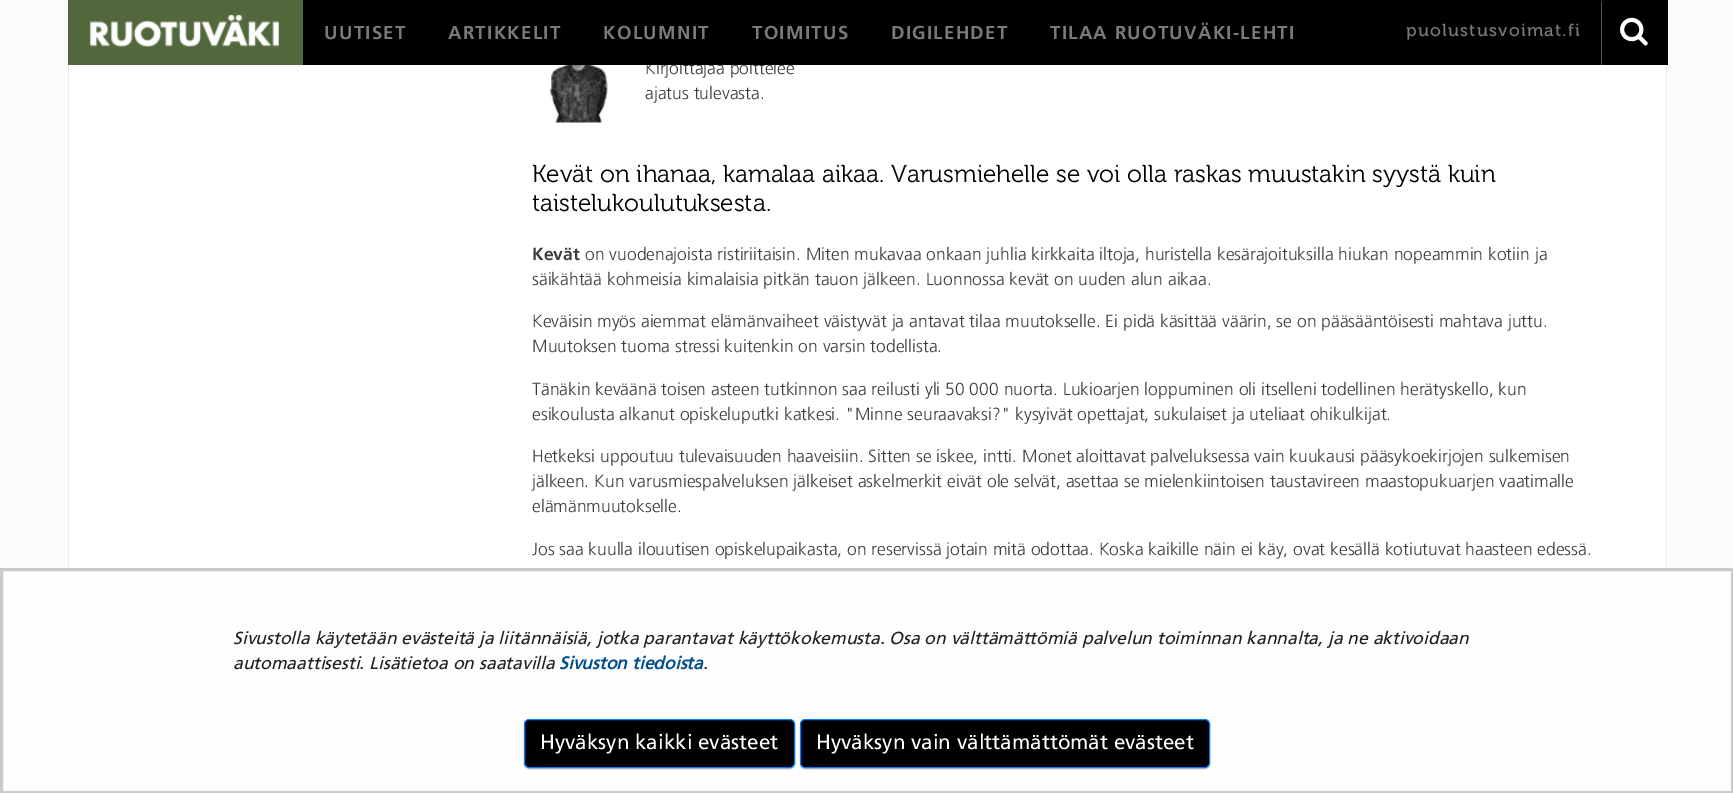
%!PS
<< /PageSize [1733 793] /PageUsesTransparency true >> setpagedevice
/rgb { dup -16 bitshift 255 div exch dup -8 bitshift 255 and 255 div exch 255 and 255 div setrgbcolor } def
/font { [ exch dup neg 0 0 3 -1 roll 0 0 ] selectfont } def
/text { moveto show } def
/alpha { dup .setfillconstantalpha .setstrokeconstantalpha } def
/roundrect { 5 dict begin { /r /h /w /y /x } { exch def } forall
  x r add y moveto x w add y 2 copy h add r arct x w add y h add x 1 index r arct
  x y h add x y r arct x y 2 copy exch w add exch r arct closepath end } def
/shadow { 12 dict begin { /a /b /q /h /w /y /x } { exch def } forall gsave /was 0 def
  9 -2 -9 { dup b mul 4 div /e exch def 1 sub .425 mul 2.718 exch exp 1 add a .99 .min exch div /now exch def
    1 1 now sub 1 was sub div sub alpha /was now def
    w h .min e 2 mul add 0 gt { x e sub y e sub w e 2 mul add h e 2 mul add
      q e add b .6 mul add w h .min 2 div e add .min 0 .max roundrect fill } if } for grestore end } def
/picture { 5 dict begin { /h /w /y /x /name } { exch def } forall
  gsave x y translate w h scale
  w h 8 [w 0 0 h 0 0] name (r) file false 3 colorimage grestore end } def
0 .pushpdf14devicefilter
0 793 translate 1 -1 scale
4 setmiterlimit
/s1 { /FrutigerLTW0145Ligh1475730-Light 17.5 font 16#3C3C3C rgb } def
/s2 { /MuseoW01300-Light 24.4 font 16#000000 rgb } def
/s3 { /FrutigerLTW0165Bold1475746-Bold 17.5 font 16#3C3C3C rgb } def
/s4 { /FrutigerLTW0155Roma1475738-Italic 17.5 font 16#212121 rgb } def
/s5 { /FrutigerLTW0155Roma1475738-BoldItalic 17.5 font 16#004F8C rgb } def
/s6 { /FrutigerLTW0155Roma1475738-Regular 20.6 font 16#FFFFFF rgb } def
16#FBFBFB rgb
0 0 1733 793 rectfill
16#FFFFFF rgb
69 65 1599 503 rectfill
s1
(Kirjoittajaa polttelee) 645 74 text
16#000000 rgb
303 0 1365 65 rectfill
16#52673B rgb
68 0 235 65 rectfill
(pic1.raw) 89 14 190 33 picture
/FrutigerLTW0165Bold1475746-Bold 18.7 font
16#797979 rgb
324 39 moveto 1.25 0 (UUTISET) ashow
448 39 moveto 1.25 0 (ARTIKKELIT) ashow
603 39 moveto 1.25 0 (KOLUMNIT) ashow
752 39 moveto 1.25 0 (TOIMITUS) ashow
891 39 moveto 1.25 0 (DIGILEHDET) ashow
1050 39 moveto 1.25 0 (TILAA RUOTUVÄKI-LEHTI) ashow
/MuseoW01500-Regular 17.5 font
1406 36 moveto 1.25 0 (puolustusvoimat.fi) ashow
16#555555 rgb
1601 65 moveto 1601 0 lineto 1602 4 lineto 1602 65 lineto closepath fill
(pic2.raw) 1620 17 28 29 picture
16#ECEBEB rgb
1666 65 1 503 rectfill
68 65 1 503 rectfill
(pic3.raw) 549 65 59 58 picture
s1
(ajatus tulevasta.) 645 99 text
s2
(Kevät on ihanaa, kamalaa aikaa. Varusmiehelle se voi olla raskas muustakin syystä kuin) 532 182 text
(taistelukoulutuksesta.) 532 211 text
s3
(Kevät) 532 260 text
s1
(on vuodenajoista ristiriitaisin. Miten mukavaa onkaan juhlia kirkkaita iltoja, huristella kesärajoituksilla hiukan nopeammin kotiin ja) 585 260 text
(säikähtää kohmeisia kimalaisia pitkän tauon jälkeen. Luonnossa kevät on uuden alun aikaa.) 532 285 text
(Keväisin myös aiemmat elämänvaiheet väistyvät ja antavat tilaa muutokselle. Ei pidä käsittää väärin, se on pääsääntöisesti mahtava juttu.) 532 327 text
(Muutoksen tuoma stressi kuitenkin on varsin todellista.) 532 352 text
(Tänäkin keväänä toisen asteen tutkinnon saa reilusti yli 50 000 nuorta. Lukioarjen loppuminen oli itselleni todellinen herätyskello, kun) 532 395 text
(esikoulusta alkanut opiskeluputki katkesi. "Minne seuraavaksi?" kysyivät opettajat, sukulaiset ja uteliaat ohikulkijat.) 532 420 text
(Hetkeksi uppoutuu tulevaisuuden haaveisiin. Sitten se iskee, intti. Monet aloittavat palveluksessa vain kuukausi pääsykoekirjojen sulkemisen) 532 462 text
(jälkeen. Kun varusmiespalveluksen jälkeiset askelmerkit eivät ole selvät, asettaa se mielenkiintoisen taustavireen maastopukuarjen vaatimalle) 532 487 text
(elämänmuutokselle.) 532 512 text
(Jos saa kuulla ilouutisen opiskelupaikasta, on reservissä jotain mitä odottaa. Koska kaikille näin ei käy, ovat kesällä kotiutuvat haasteen edessä.) 532 555 text
16#FEFEFE rgb
1.5 569.5 moveto 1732.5 569.5 lineto 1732.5 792.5 lineto 1.5 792.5 lineto closepath gsave fill grestore
16#CACACA rgb
3 setlinewidth
stroke
s4
(Sivustolla käytetään evästeitä ja liitännäisiä, jotka parantavat käyttökokemusta. Osa on välttämättömiä palvelun toiminnan kannalta, ja ne aktivoidaan) 233 644 text
(automaattisesti. Lisätietoa on saatavilla) 233 669 text
s5
(Sivuston tiedoista) 559 669 text
s4
(.) 703 669 text
16#000000 rgb
524 720 271 49 5 0.5 0.25 shadow
524.5 719.5 270 48 4.5 roundrect gsave fill grestore
16#007BFF rgb
1 setlinewidth
stroke
s6
(Hyväksyn kaikki evästeet) 540 749 text
16#000000 rgb
800 720 410 49 5 0.5 0.25 shadow
800.5 719.5 409 48 4.5 roundrect gsave fill grestore
16#007BFF rgb
stroke
s6
(Hyväksyn vain välttämättömät evästeet) 816 749 text
.poppdf14devicefilter showpage
